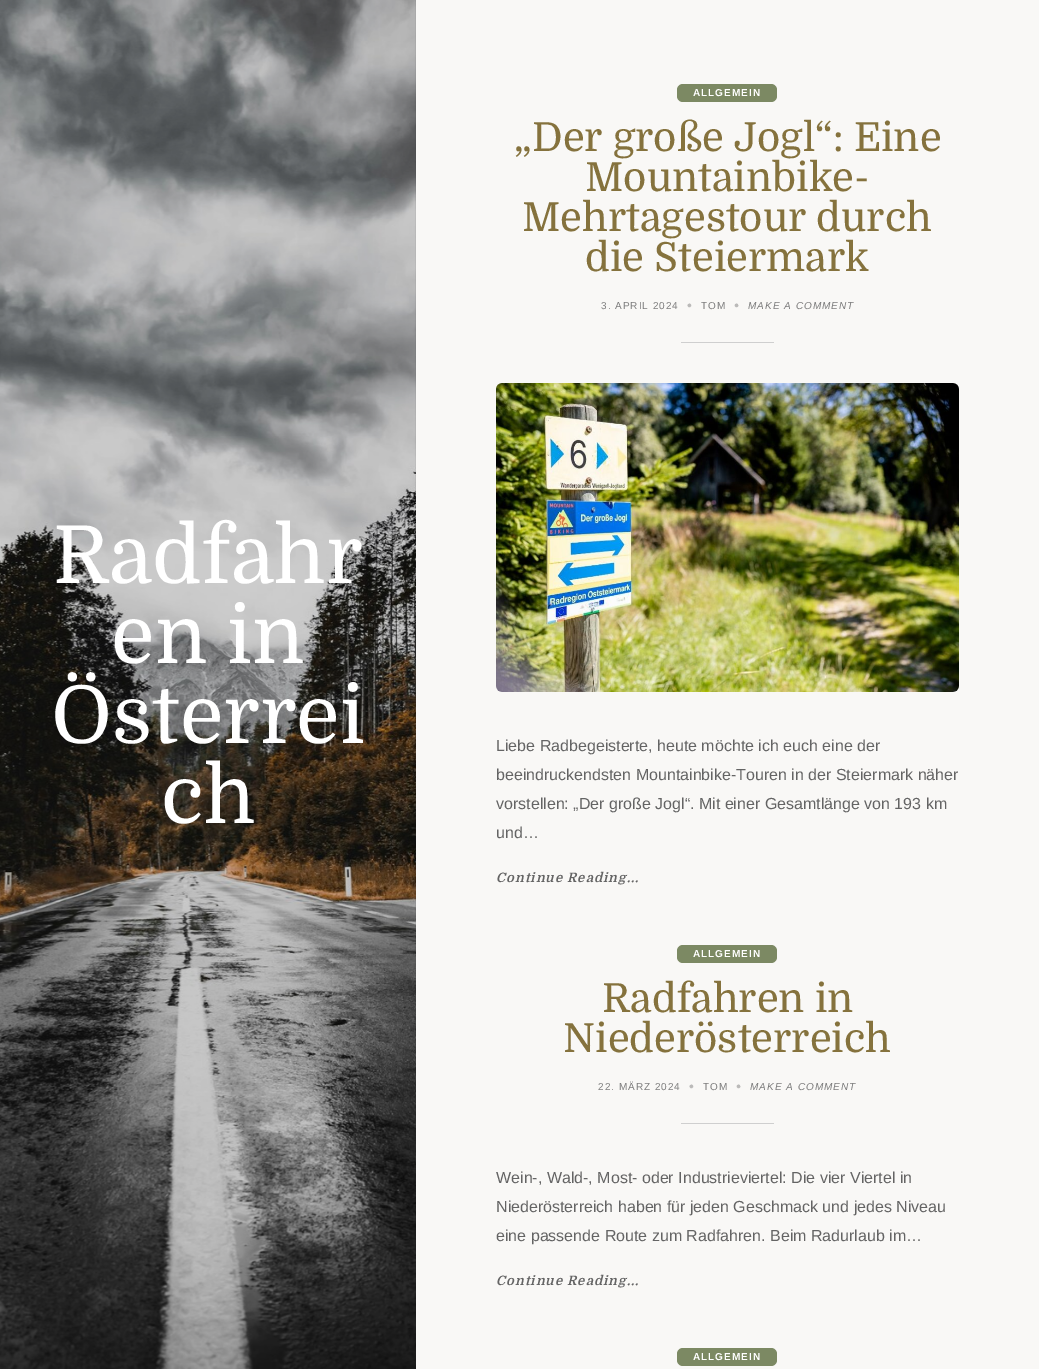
%!PS
<< /PageSize [1039 1369] >> setpagedevice
/rgb { dup -16 bitshift 255 div exch dup -8 bitshift 255 and 255 div exch 255 and 255 div setrgbcolor } def
/font { [ exch dup neg 0 0 3 -1 roll 0 0 ] selectfont } def
/text { moveto show } def
/roundrect { 5 dict begin { /r /h /w /y /x } { exch def } forall
  x r add y moveto x w add y 2 copy h add r arct x w add y h add x 1 index r arct
  x y h add x y r arct x y 2 copy exch w add exch r arct closepath end } def
/picture { 5 dict begin { /h /w /y /x /name } { exch def } forall
  gsave x y translate w h scale
  w h 8 [w 0 0 h 0 0] name (r) file false 3 colorimage grestore end } def
0 1369 translate 1 -1 scale
4 setmiterlimit
/s1 { /Domine-Regular 80 font 16#FFFFFF rgb } def
/s2 { /Domine-Regular 40 font 16#85723D rgb } def
/s3 { /LiberationSans-Regular 16 font 16#646464 rgb } def
16#F9F8F6 rgb
0 0 1039 1369 rectfill
(pic1.raw) 0 0 416 1369 picture
s1
(Radfahr) 53 583 text
(en in) 111 663 text
(Österrei) 51 743 text
(ch) 161 823 text
16#7C8963 rgb
677 84 100 18 6 roundrect fill
/LiberationSans-Bold 10 font
16#FFFFFF rgb
693 96 moveto 1 0 (ALLGEMEIN) ashow
s2
(„Der große Jogl“: Eine) 514 151 text
(Mountainbike-) 585 191 text
(Mehrtagestour durch) 522 231 text
(die Steiermark) 585 271 text
/LiberationSans-Regular 10 font
16#7C7C7C rgb
601 309 moveto 1 0 (3. APRIL 2024) ashow
/LiberationSans-Regular 14 font
16#BBBAB9 rgb
687 310 moveto 1 0 (•) ashow
/LiberationSans-Regular 10 font
16#7C7C7C rgb
701 309 moveto 1 0 (TOM) ashow
/LiberationSans-Italic 14 font
16#BBBAB9 rgb
734 310 moveto 1 0 (•) ashow
/LiberationSans-Italic 10 font
16#7C7C7C rgb
748 309 moveto 1 0 (MAKE A COMMENT) ashow
16#CFCFCF rgb
681 342 93 1 rectfill
(pic2.raw) 496 383 463 309 picture
s3
(Liebe Radbegeisterte, heute möchte ich euch eine der) 496 751 text
(beeindruckendsten Mountainbike-Touren in der Steiermark näher) 496 780 text
(vorstellen: „Der große Jogl“. Mit einer Gesamtlänge von 193 km) 496 809 text
(und…) 496 838 text
/Domine-BoldItalic 13 font
496 882 moveto 1 0 (Continue Reading...) ashow
16#7C8963 rgb
677 945 100 18 6 roundrect fill
/LiberationSans-Bold 10 font
16#FFFFFF rgb
693 957 moveto 1 0 (ALLGEMEIN) ashow
s2
(Radfahren in) 602 1012 text
(Niederösterreich) 563 1052 text
/LiberationSans-Regular 10 font
16#7C7C7C rgb
598 1090 moveto 1 0 (22. MÄRZ 2024) ashow
/LiberationSans-Regular 14 font
16#BBBAB9 rgb
689 1091 moveto 1 0 (•) ashow
/LiberationSans-Regular 10 font
16#7C7C7C rgb
703 1090 moveto 1 0 (TOM) ashow
/LiberationSans-Italic 14 font
16#BBBAB9 rgb
736 1091 moveto 1 0 (•) ashow
/LiberationSans-Italic 10 font
16#7C7C7C rgb
750 1090 moveto 1 0 (MAKE A COMMENT) ashow
16#CFCFCF rgb
681 1123 93 1 rectfill
s3
(Wein-, Wald-, Most- oder Industrieviertel: Die vier Viertel in) 496 1183 text
(Niederösterreich haben für jeden Geschmack und jedes Niveau) 496 1212 text
(eine passende Route zum Radfahren. Beim Radurlaub im…) 496 1241 text
/Domine-BoldItalic 13 font
496 1285 moveto 1 0 (Continue Reading...) ashow
16#7C8963 rgb
677 1348 100 18 6 roundrect fill
/LiberationSans-Bold 10 font
16#FFFFFF rgb
693 1360 moveto 1 0 (ALLGEMEIN) ashow
showpage
